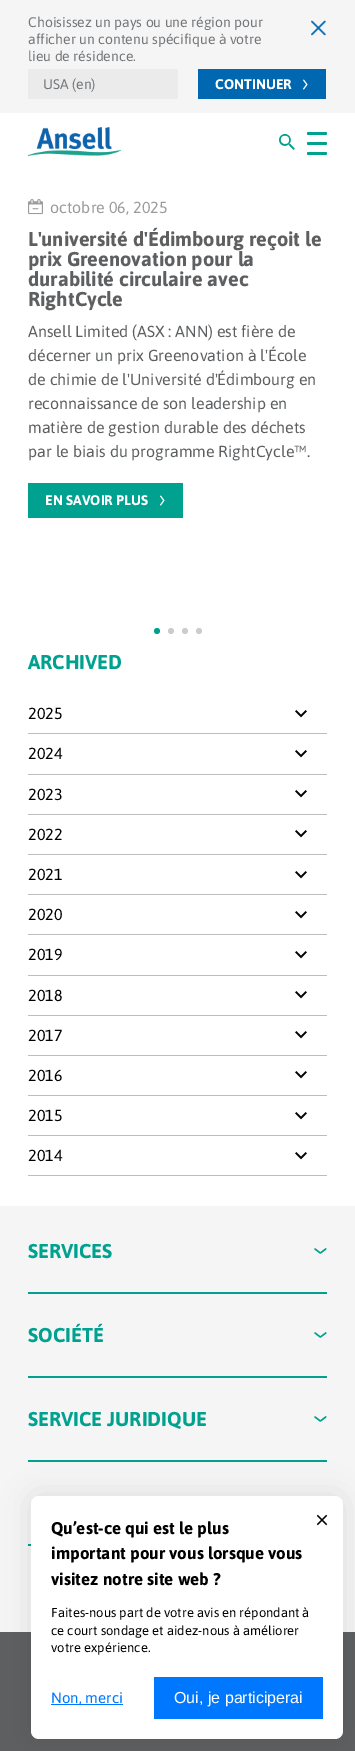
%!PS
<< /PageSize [355 1751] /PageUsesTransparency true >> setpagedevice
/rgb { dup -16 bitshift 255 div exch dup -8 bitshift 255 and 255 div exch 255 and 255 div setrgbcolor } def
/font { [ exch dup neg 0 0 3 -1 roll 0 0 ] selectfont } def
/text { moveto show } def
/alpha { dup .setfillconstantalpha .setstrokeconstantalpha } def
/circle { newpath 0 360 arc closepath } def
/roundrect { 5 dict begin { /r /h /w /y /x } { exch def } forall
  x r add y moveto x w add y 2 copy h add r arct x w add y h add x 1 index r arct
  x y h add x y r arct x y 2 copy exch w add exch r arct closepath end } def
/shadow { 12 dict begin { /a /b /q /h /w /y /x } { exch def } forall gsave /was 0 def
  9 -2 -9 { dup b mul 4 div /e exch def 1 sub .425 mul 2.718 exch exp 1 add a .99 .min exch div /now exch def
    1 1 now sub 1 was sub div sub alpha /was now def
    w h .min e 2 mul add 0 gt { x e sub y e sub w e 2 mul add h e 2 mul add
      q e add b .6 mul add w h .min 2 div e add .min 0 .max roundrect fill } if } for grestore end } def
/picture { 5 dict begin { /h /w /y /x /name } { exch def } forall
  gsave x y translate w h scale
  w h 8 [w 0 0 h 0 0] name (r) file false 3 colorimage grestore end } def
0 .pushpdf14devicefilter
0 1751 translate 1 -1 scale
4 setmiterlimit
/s1 { /Asap-Regular 14 font 16#75787B rgb } def
/s2 { /Asap-Bold 14 font 16#FFFFFF rgb } def
/s3 { /Asap-Regular 16 font 16#9A9B9B rgb } def
/s4 { /Asap-Bold 20 font 16#5D5F61 rgb } def
/s5 { /Asap-Regular 16 font 16#5D5F61 rgb } def
/s6 { /Asap-Bold 20 font 16#00A28F rgb } def
/s7 { /Asap-Regular 16 font 16#000000 rgb } def
/s8 { /Asap-Bold 17 font 16#000000 rgb } def
/s9 { /Asap-Regular 13 font 16#000000 rgb } def
/s10 { /Asap-Regular 15 font 16#0077FF rgb } def
/s11 { /LiberationSans-Regular 16 font 16#FFFFFF rgb } def
/s12 { /LiberationSans-Regular 24 font 16#000000 rgb } def
16#FFFFFF rgb
0 0 355 1751 rectfill
16#F5F5F5 rgb
0 0 355 113 rectfill
s1
(Choisissez un pays ou une région pour) 28 27 text
(afficher un contenu spécifique à votre) 28 44 text
(lieu de résidence.) 28 61 text
(pic1.raw) 311 20 15 16 picture
16#EBEBEB rgb
28 69 150 30 rectfill
s1
(USA \(en\)) 43 89 text
16#0067B1 rgb
198 69 128 30 rectfill
s2
(CONTINUER) 215 89 text
(pic2.raw) 303 79 5 11 picture
(pic3.raw) 28 127 93 29 picture
(pic4.raw) 279 134 16 16 picture
16#00A28F rgb
307 132 20 3 1.5 roundrect fill
307 142 20 3 1.5 roundrect fill
307 152 20 3 1.5 roundrect fill
(pic5.raw) 28 199 15 16 picture
s3
(octobre 06, 2025) 50 213 text
s4
(L'université d'Édimbourg reçoit le) 28 246 text
(prix Greenovation pour la) 28 266 text
(durabilité circulaire avec) 28 286 text
(RightCycle) 28 306 text
s5
(Ansell Limited \(ASX : ANN\) est fière de) 28 337 text
(décerner un prix Greenovation à l'École) 28 361 text
(de chimie de l'Université d'Édimbourg en) 28 385 text
(reconnaissance de son leadership en) 28 409 text
(matière de gestion durable des déchets) 28 433 text
(par le biais du programme RightCycle™.) 28 457 text
16#00A28F rgb
28 483 155 35 rectfill
s2
(EN SAVOIR PLUS) 45 505 text
(pic6.raw) 160 495 5 11 picture
16#00A28F rgb
157 631 3 circle fill
16#CCCCCC rgb
171 631 3 circle fill
185 631 3 circle fill
199 631 3 circle fill
s6
(ARCHIVED) 28 669 text
16#BDBDBD rgb
28 733 299 1 rectfill
s7
(2025) 28 719 text
(pic7.raw) 295 710 12 8 picture
16#BDBDBD rgb
28 774 299 1 rectfill
s7
(2024) 28 759 text
(pic7.raw) 295 750 12 8 picture
16#BDBDBD rgb
28 814 299 1 rectfill
s7
(2023) 28 800 text
(pic7.raw) 295 790 12 8 picture
16#BDBDBD rgb
28 854 299 1 rectfill
s7
(2022) 28 840 text
(pic7.raw) 295 830 12 8 picture
16#BDBDBD rgb
28 894 299 1 rectfill
s7
(2021) 28 880 text
(pic7.raw) 295 871 12 8 picture
16#BDBDBD rgb
28 934 299 1 rectfill
s7
(2020) 28 920 text
(pic7.raw) 295 911 12 8 picture
16#BDBDBD rgb
28 975 299 1 rectfill
s7
(2019) 28 960 text
(pic7.raw) 295 951 12 8 picture
16#BDBDBD rgb
28 1015 299 1 rectfill
s7
(2018) 28 1001 text
(pic7.raw) 295 991 12 8 picture
16#BDBDBD rgb
28 1055 299 1 rectfill
s7
(2017) 28 1041 text
(pic7.raw) 295 1031 12 8 picture
16#BDBDBD rgb
28 1095 299 1 rectfill
s7
(2016) 28 1081 text
(pic7.raw) 295 1071 12 8 picture
16#BDBDBD rgb
28 1135 299 1 rectfill
s7
(2015) 28 1121 text
(pic7.raw) 295 1112 12 8 picture
16#BDBDBD rgb
28 1175 299 1 rectfill
s7
(2014) 28 1161 text
(pic7.raw) 295 1152 12 8 picture
16#F5F5F5 rgb
0 1206 355 426 rectfill
16#00A28F rgb
28 1292 299 2 rectfill
s6
(SERVICES) 28 1258 text
(pic8.raw) 314 1248 13 6 picture
28 1376 299 2 rectfill
(SOCIÉTÉ) 28 1342 text
(pic8.raw) 314 1332 13 6 picture
28 1460 299 2 rectfill
(SERVICE JURIDIQUE) 28 1426 text
(pic8.raw) 314 1416 13 6 picture
28 1544 3 2 rectfill
16#5D5F61 rgb
0 1632 355 119 rectfill
16#000000 rgb
31 1496 312 243 8 15 0.1 shadow
16#FFFFFF rgb
31 1496 312 243 8 roundrect fill
s8
(Qu’est-ce qui est le plus) 51 1534 text
(important pour vous lorsque vous) 51 1559 text
(visitez notre site web ?) 51 1585 text
s9
(Faites-nous part de votre avis en répondant à) 51 1617 text
(ce court sondage et aidez-nous à améliorer) 51 1635 text
(votre expérience.) 51 1652 text
16#0077FF rgb
51 1704 72 1 rectfill
s10
(Non, merci) 51 1703 text
154 1677 169 42 rectfill
s11
(Oui, je participerai) 174 1703 text
s12
(×) 315 1528 text
.poppdf14devicefilter showpage
